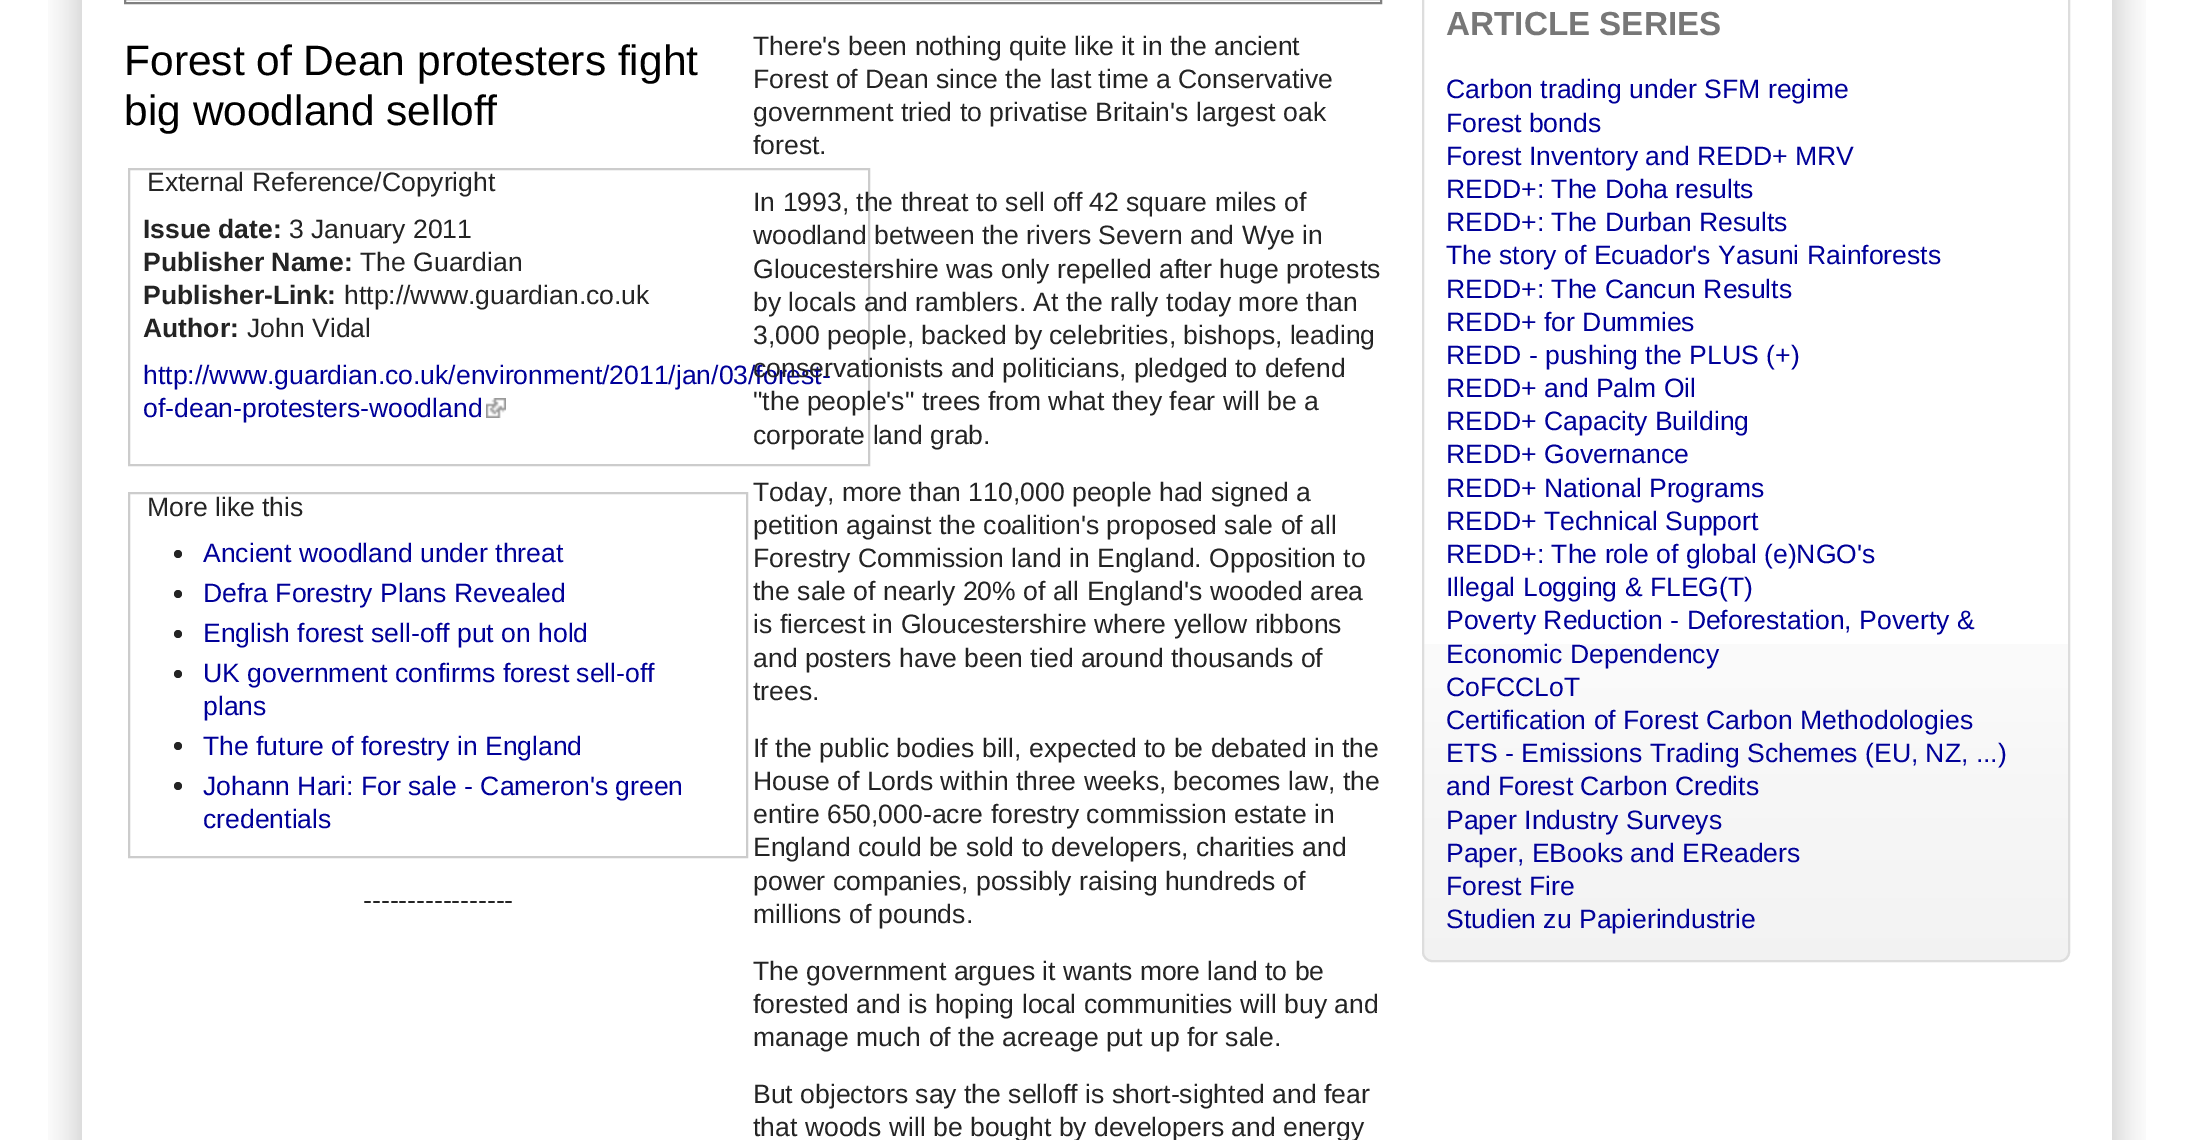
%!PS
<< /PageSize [2194 1140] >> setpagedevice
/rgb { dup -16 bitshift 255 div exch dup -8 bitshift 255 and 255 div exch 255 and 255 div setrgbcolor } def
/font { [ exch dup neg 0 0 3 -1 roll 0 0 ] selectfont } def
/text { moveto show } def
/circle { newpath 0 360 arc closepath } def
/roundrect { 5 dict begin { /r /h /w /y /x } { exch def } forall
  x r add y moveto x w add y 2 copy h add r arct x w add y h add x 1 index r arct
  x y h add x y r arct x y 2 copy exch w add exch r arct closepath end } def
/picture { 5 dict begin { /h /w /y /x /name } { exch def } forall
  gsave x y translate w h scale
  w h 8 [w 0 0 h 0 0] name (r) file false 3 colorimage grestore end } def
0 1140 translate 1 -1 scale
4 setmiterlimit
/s1 { /LiberationSans-Regular 42.5 font 16#000000 rgb } def
/s2 { /LiberationSans-Regular 26.55 font 16#242424 rgb } def
/s3 { /LiberationSans-Bold 26.55 font 16#242424 rgb } def
/s4 { /LiberationSans-Regular 26.55 font 16#000099 rgb } def
/s5 { /LiberationSans-Bold 33.25 font 16#777777 rgb } def
16#FFFFFF rgb
0 0 2194 1140 rectfill
(pic1.raw) 48 0 34 1140 picture
(pic2.raw) 2112 0 34 1140 picture
16#808080 rgb
2 setlinewidth
125 -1 1256 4 rectstroke
s1
(Forest of Dean protesters fight) 124 75 text
(big woodland selloff) 124 125 text
16#CCCCCC rgb
129 169 740 296 rectstroke
s2
(External Reference/Copyright) 147 191 text
s3
(Issue date:) 143 238 text
s2
(3 January 2011) 289 238 text
s3
(Publisher Name:) 143 271 text
s2
(The Guardian) 360 271 text
s3
(Publisher-Link:) 143 304 text
s2
(http://www.guardian.co.uk) 344 304 text
s3
(Author:) 143 337 text
s2
(John Vidal) 247 337 text
s4
(http://www.guardian.co.uk/environment/2011/jan/03/forest-) 143 384 text
(of-dean-protesters-woodland) 143 417 text
(pic3.raw) 486 398 20 20 picture
16#CCCCCC rgb
129 493 618 364 rectstroke
s2
(More like this) 147 516 text
178 554 4 circle fill
s4
(Ancient woodland under threat) 203 562 text
16#242424 rgb
178 594 4 circle fill
s4
(Defra Forestry Plans Revealed) 203 602 text
16#242424 rgb
178 634 4 circle fill
s4
(English forest sell-off put on hold) 203 642 text
16#242424 rgb
178 674 4 circle fill
s4
(UK government confirms forest sell-off) 203 682 text
(plans) 203 715 text
16#242424 rgb
178 746 4 circle fill
s4
(The future of forestry in England) 203 755 text
16#242424 rgb
178 786 4 circle fill
s4
(Johann Hari: For sale - Cameron's green) 203 795 text
(credentials) 203 828 text
s2
(-----------------) 363 909 text
(There's been nothing quite like it in the ancient) 753 55 text
(Forest of Dean since the last time a Conservative) 753 88 text
(government tried to privatise) 753 121 text
(Britain's largest oak) 1095 121 text
(forest.) 753 154 text
(In 1993, the threat to sell off 42) 753 211 text
(square miles of) 1126 211 text
(woodland between the rivers Severn and Wye in) 753 244 text
(Gloucestershire was only repelled after huge protests) 753 278 text
(by locals and ramblers. At the rally today more than) 753 311 text
(3,000 people, backed by) 753 344 text
(celebrities, bishops, leading) 1049 344 text
(conservationists and politicians, pledged) 753 377 text
(to defend) 1235 377 text
("the people's" trees from what they fear will be a) 753 410 text
(corporate land grab.) 753 444 text
(Today, more than 110,000 people had signed a) 753 501 text
(petition against the coalition's proposed sale of all) 753 534 text
(Forestry Commission land in) 753 567 text
(England. Opposition to) 1097 567 text
(the sale of nearly 20% of all England's wooded) 753 600 text
(area) 1310 600 text
(is fiercest in Gloucestershire where yellow ribbons) 753 633 text
(and posters have been tied around thousands of) 753 667 text
(trees.) 753 700 text
(If the public bodies bill, expected to be debated in the) 753 757 text
(House of Lords within three weeks,) 753 790 text
(becomes law, the) 1173 790 text
(entire 650,000-acre forestry commission estate in) 753 823 text
(England could be sold to developers, charities and) 753 856 text
(power companies, possibly raising hundreds of) 753 890 text
(millions of pounds.) 753 923 text
(The government argues it wants more land to be) 753 980 text
(forested and is hoping local communities) 753 1013 text
(will buy and) 1240 1013 text
(manage much of the acreage put up for sale.) 753 1046 text
(But objectors say the selloff is short-sighted and fear) 753 1103 text
(that woods will be bought by developers and energy) 753 1136 text
(pic4.raw) 1422 644 648 316 picture
16#DDDDDD rgb
1423 -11 646 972 9 roundrect stroke
s5
(ARTICLE SERIES) 1446 35 text
s4
(Carbon trading under SFM regime) 1446 98 text
(Forest bonds) 1446 132 text
(Forest Inventory and REDD+ MRV) 1446 165 text
(REDD+: The Doha results) 1446 198 text
(REDD+: The Durban Results) 1446 231 text
(The story of Ecuador's Yasuni Rainforests) 1446 264 text
(REDD+: The Cancun Results) 1446 298 text
(REDD+ for Dummies) 1446 331 text
(REDD - pushing the PLUS \(+\)) 1446 364 text
(REDD+ and Palm Oil) 1446 397 text
(REDD+ Capacity Building) 1446 430 text
(REDD+ Governance) 1446 463 text
(REDD+ National Programs) 1446 497 text
(REDD+ Technical Support) 1446 530 text
(REDD+: The role of global \(e\)NGO's) 1446 563 text
(Illegal Logging & FLEG\(T\)) 1446 596 text
(Poverty Reduction - Deforestation, Poverty &) 1446 629 text
(Economic Dependency) 1446 663 text
(CoFCCLoT) 1446 696 text
(Certification of Forest Carbon Methodologies) 1446 729 text
(ETS - Emissions Trading Schemes \(EU, NZ, ...\)) 1446 762 text
(and Forest Carbon Credits) 1446 795 text
(Paper Industry Surveys) 1446 829 text
(Paper, EBooks and EReaders) 1446 862 text
(Forest Fire) 1446 895 text
(Studien zu Papierindustrie) 1446 928 text
showpage
